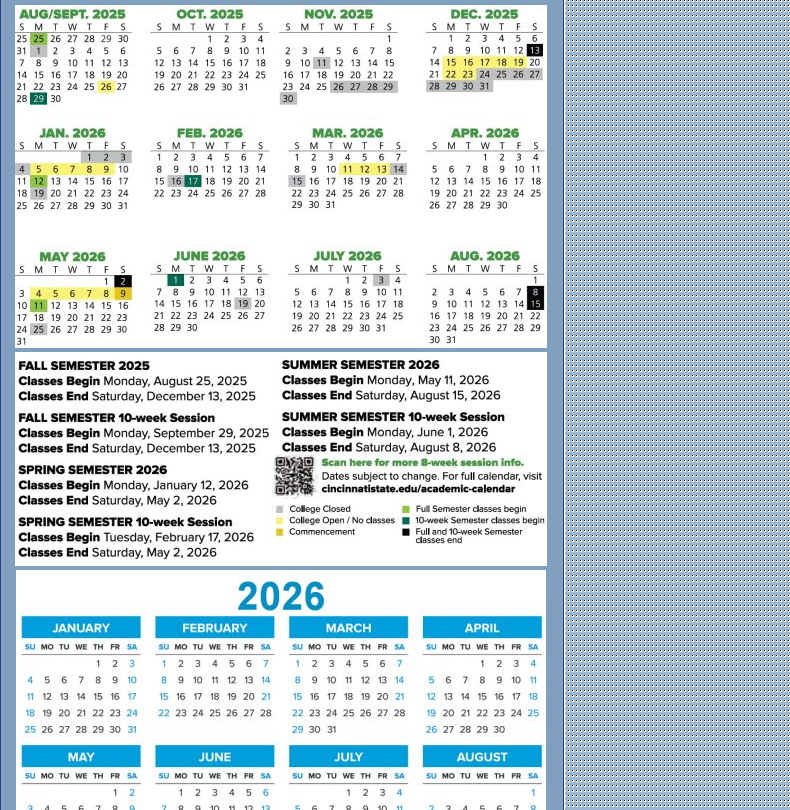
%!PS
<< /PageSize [790 810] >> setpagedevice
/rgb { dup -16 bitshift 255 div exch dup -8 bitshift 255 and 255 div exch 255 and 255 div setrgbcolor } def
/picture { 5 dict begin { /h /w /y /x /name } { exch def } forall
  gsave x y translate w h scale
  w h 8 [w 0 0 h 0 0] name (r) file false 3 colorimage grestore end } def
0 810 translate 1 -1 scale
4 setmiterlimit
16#FFFFFF rgb
0 0 790 810 rectfill
(pic1.raw) 565 0 225 810 picture
(pic2.raw) 0 0 565 810 picture
(pic3.raw) 15 5 532 343 picture
(pic4.raw) 15 352 532 214 picture
(pic5.raw) 16 570 530 240 picture
showpage
